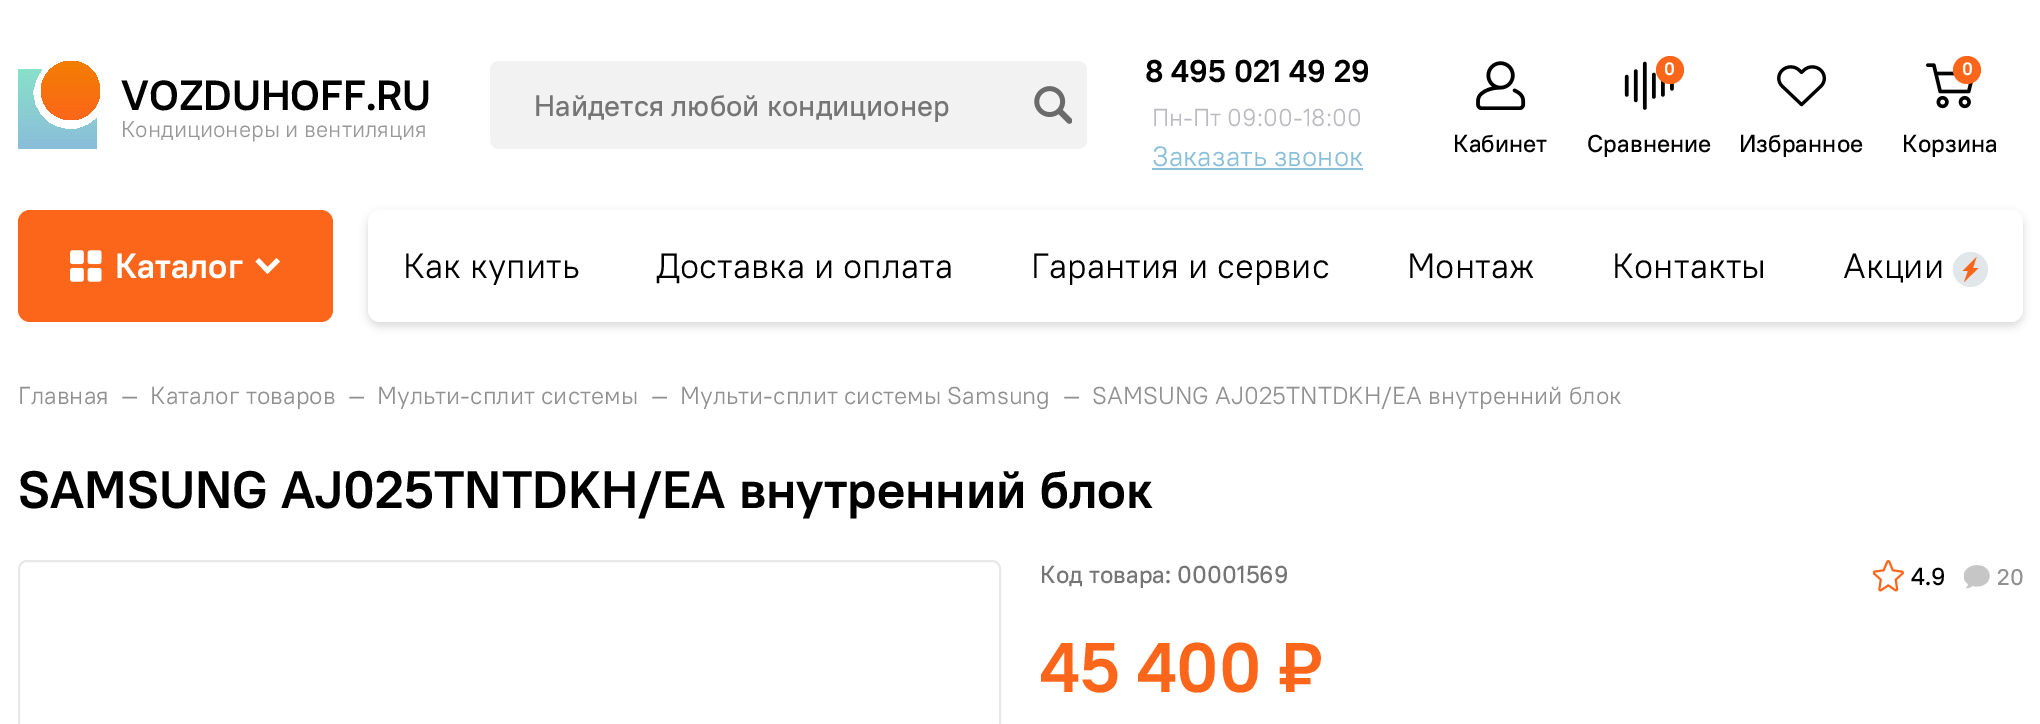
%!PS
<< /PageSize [2040 724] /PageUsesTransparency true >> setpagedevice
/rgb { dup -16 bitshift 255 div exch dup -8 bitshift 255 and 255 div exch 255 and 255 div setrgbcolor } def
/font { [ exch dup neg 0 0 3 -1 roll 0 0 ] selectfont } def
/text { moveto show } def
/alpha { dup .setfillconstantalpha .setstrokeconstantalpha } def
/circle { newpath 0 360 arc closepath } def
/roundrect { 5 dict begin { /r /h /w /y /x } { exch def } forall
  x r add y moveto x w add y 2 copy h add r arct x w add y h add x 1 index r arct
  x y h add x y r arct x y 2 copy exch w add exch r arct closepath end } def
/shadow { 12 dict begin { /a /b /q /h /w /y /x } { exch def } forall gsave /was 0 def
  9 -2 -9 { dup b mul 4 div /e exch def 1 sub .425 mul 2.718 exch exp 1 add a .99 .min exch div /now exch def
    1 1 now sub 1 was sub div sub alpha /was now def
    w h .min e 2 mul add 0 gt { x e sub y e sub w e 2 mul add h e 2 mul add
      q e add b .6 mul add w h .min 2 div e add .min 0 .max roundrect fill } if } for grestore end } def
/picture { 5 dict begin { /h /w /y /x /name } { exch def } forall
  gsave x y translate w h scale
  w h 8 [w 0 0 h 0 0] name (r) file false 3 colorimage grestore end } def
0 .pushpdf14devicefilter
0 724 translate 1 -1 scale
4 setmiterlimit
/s1 { /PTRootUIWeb-Bold 42 font 16#000000 rgb } def
/s2 { /PTRootUIWeb-Regular 22.75 font 16#989898 rgb } def
/s3 { /PTRootUIWeb-Medium 29.75 font 16#757575 rgb } def
/s4 { /PTRootUIWeb-Bold 31.5 font 16#000000 rgb } def
/s5 { /PTRootUIWeb-Regular 24.5 font 16#BABAC0 rgb } def
/s6 { /PTRootUIWeb-Regular 28 font 16#8ABFD9 rgb } def
/s7 { /PTRootUIWeb-Medium 24.5 font 16#000000 rgb } def
/s8 { /PTRootUIWeb-Bold 18 font 16#FFFFFF rgb } def
/s9 { /PTRootUIWeb-Bold 35 font 16#FFFFFF rgb } def
/s10 { /PTRootUIWeb-Regular 35 font 16#000000 rgb } def
/s11 { /PTRootUIWeb-Regular 24.5 font 16#919191 rgb } def
/s12 { /PTRootUIWeb-Bold 52.5 font 16#000000 rgb } def
/s13 { /PTRootUIWeb-Medium 24.5 font 16#757575 rgb } def
/s14 { /PTRootUIWeb-Medium 22.75 font 16#919191 rgb } def
/s15 { /PTRootUIWeb-Bold 70 font 16#FC661A rgb } def
16#FFFFFF rgb
0 0 2040 724 rectfill
gsave 71 61 moveto 87 61 100 74 100 91 curveto 100 107 87 120 71 120 curveto 55 120 41 107 41 91 curveto 41 74 55 61 71 61 curveto closepath clip newpath
<< /ShadingType 2 /ColorSpace /DeviceRGB /Coords [71 120 71 61] /Extend [true true] /Function << /FunctionType 2 /Domain [0 1] /C0 [0.988 0.4 0.102] /C1 [0.953 0.494 0.004] /N 1 >> >> shfill grestore
gsave 33 93 moveto 33 127 75 142 97 118 curveto 97 149 lineto 18 149 lineto 18 69 lineto 42 69 lineto 37 76 33 84 33 93 curveto closepath clip newpath
<< /ShadingType 2 /ColorSpace /DeviceRGB /Coords [57 149 57 69] /Extend [true true] /Function << /FunctionType 2 /Domain [0 1] /C0 [0.541 0.741 0.855] /C1 [0.533 0.882 0.788] /N 1 >> >> shfill grestore
s1
(VOZDUHOFF.RU) 121 110 text
s2
(Кондиционеры и вентиляция) 121 137 text
16#F2F2F2 rgb
490 61 597 88 9 roundrect fill
s3
(Найдется любой кондиционер) 534 116 text
(pic1.raw) 1034 86 38 38 picture
s4
(8 495 021 49 29) 1145 82 text
s5
(Пн-Пт 09:00-18:00) 1152 126 text
s6
(Заказать звонок) 1152 166 text
1152 168 211 2 rectfill
(pic2.raw) 1476 61 50 49 picture
s7
(Кабинет) 1453 152 text
(pic3.raw) 1624 61 50 49 picture
16#FC661A rgb
1670 70 14 circle fill
s8
(0) 1664 75 text
s7
(Сравнение) 1587 152 text
(pic4.raw) 1777 65 50 42 picture
(Избранное) 1739 152 text
(pic5.raw) 1926 63 47 46 picture
16#FC661A rgb
1967 70 14 circle fill
s8
(0) 1962 75 text
s7
(Корзина) 1902 152 text
16#FC661A rgb
18 210 315 112 12 roundrect fill
(pic6.raw) 70 250 32 32 picture
s9
(Каталог) 115 278 text
280 261.5 moveto 276.5 258 lineto 267.5 267 lineto 259 258 lineto 255.5 261.5 lineto 267.5 274 lineto closepath fill
16#000000 rgb
368 214 1655 112 12 4.5 0.15 shadow
16#FFFFFF rgb
368 210 1655 112 12 roundrect fill
s10
(Как купить) 403 278 text
(Доставка и оплата) 656 278 text
(Гарантия и сервис) 1031 278 text
(Монтаж) 1407 278 text
(Контакты) 1612 278 text
(Акции) 1843 278 text
16#E1E6E9 rgb
1970.5 269.5 17.5 circle fill
16#FC661A rgb
1976.5 257 moveto 1962.5 271 lineto 1968 271 lineto 1964 282 lineto 1978.5 268 lineto 1973 268 lineto closepath fill
s11
(Главная) 18 404 text
(—) 121 404 text
(Каталог товаров) 150 404 text
(—) 348 404 text
(Мульти-сплит системы) 377 404 text
(—) 651 404 text
(Мульти-сплит системы Samsung) 680 404 text
(—) 1063 404 text
(SAMSUNG AJ025TNTDKH/EA внутренний блок) 1092 404 text
s12
(SAMSUNG AJ025TNTDKH/EA внутренний блок) 18 508 text
16#E8E8E8 rgb
2 setlinewidth
19 561 981 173 8 roundrect stroke
s13
(Код товара: 00001569) 1040 583 text
(pic7.raw) 1873 560 31 32 picture
s7
(4.9) 1911 585 text
(pic8.raw) 1964 565 26 24 picture
s14
(20) 1997 585 text
s15
(45 400 ₽) 1040 692 text
.poppdf14devicefilter showpage
